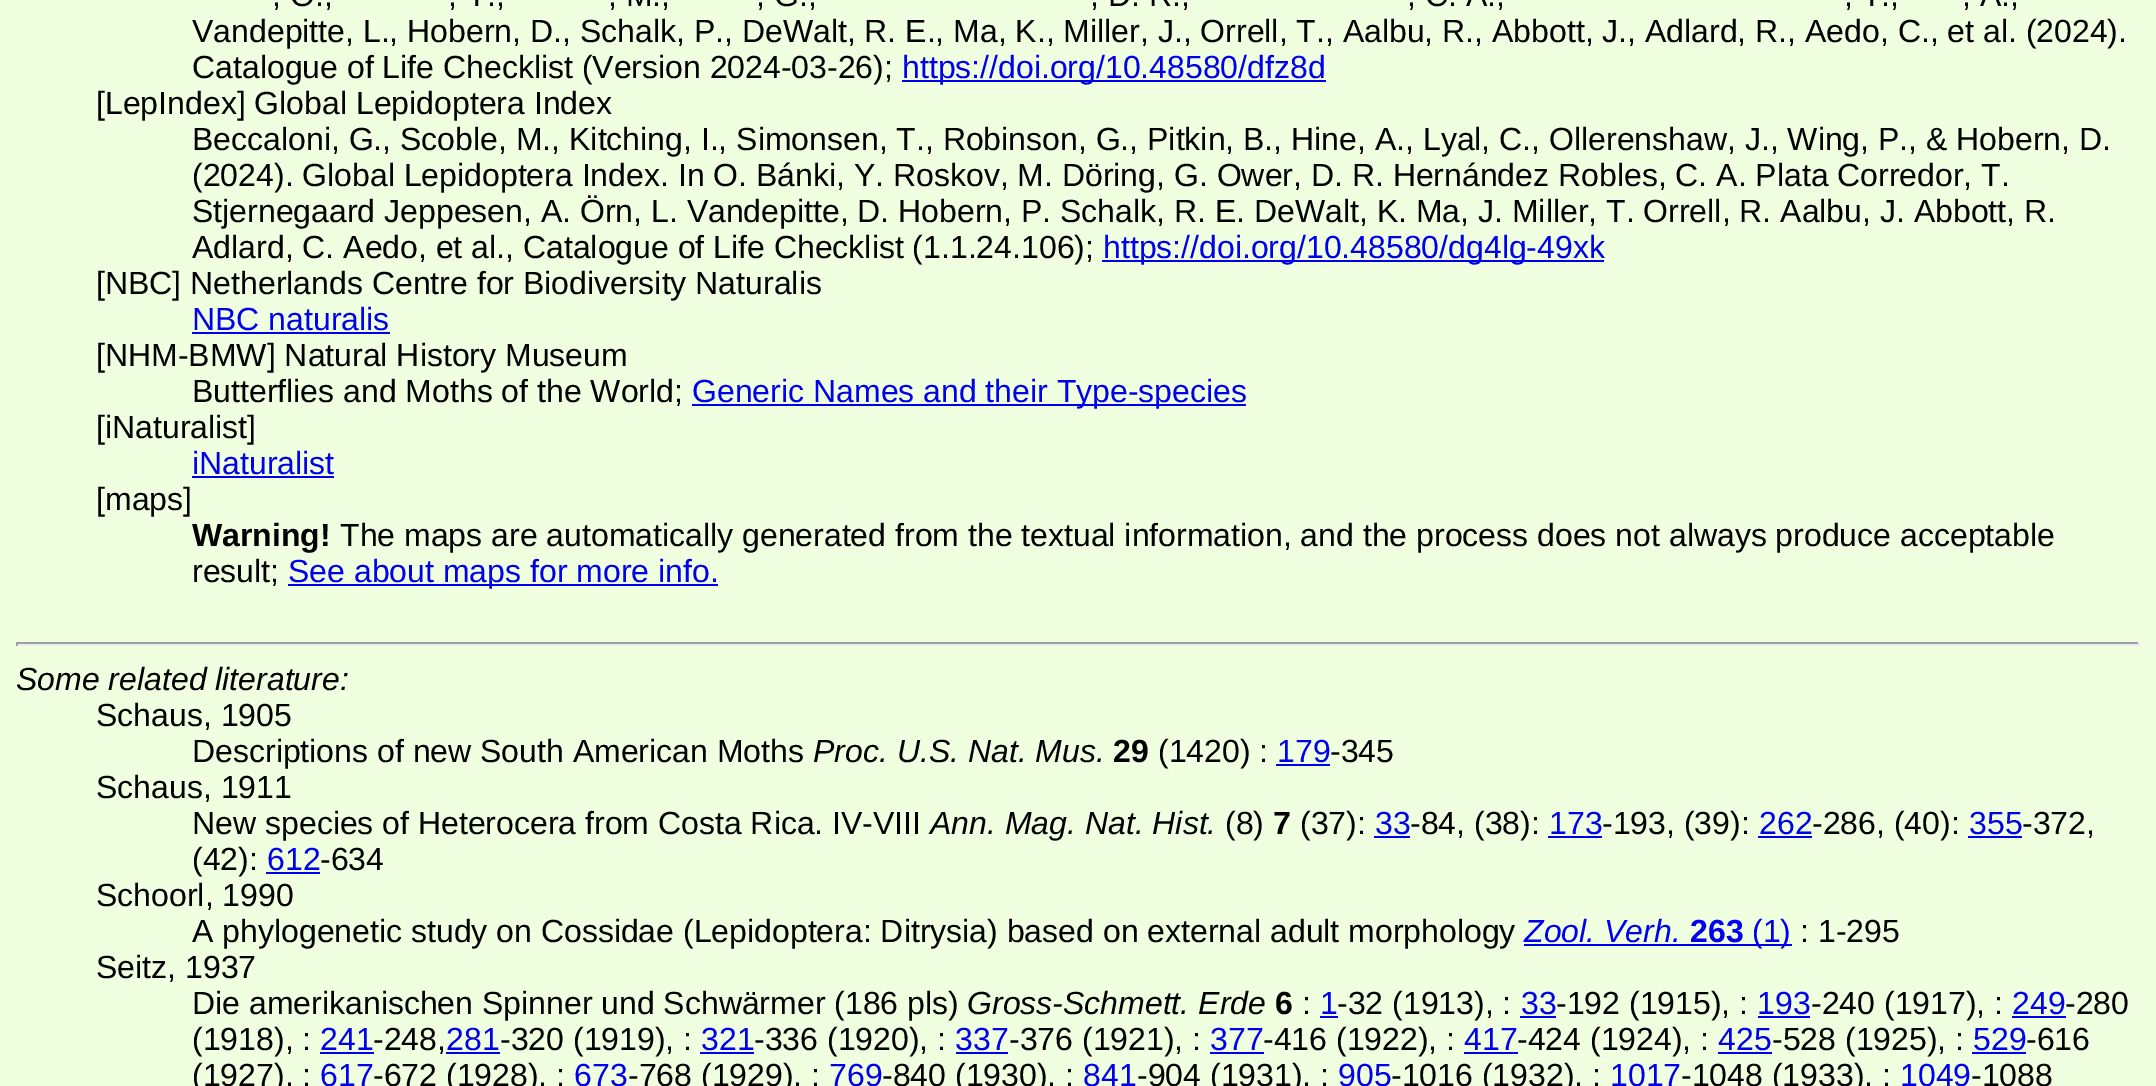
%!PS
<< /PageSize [2156 1086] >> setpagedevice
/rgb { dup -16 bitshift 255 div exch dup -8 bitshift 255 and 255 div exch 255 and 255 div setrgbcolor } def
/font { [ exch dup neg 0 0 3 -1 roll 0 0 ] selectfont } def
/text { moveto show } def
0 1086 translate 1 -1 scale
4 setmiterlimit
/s1 { /LiberationSans-Regular 32 font 16#000000 rgb } def
/s2 { /LiberationSans-Regular 32 font 16#0000EE rgb } def
/s3 { /LiberationSans-Bold 32 font 16#000000 rgb } def
/s4 { /LiberationSans-Italic 32 font 16#000000 rgb } def
/s5 { /LiberationSans-Italic 32 font 16#0000EE rgb } def
/s6 { /LiberationSans-Bold 32 font 16#0000EE rgb } def
16#F0FFE0 rgb
0 0 2156 1086 rectfill
s1
(, O.,) 272 6 text
(, Y.,) 448 6 text
(, M.,) 608 6 text
(, G.,) 756 6 text
(, D. R.,) 1090 6 text
(, C. A.,) 1407 6 text
(, T.,) 1844 6 text
(, A.,) 1962 6 text
(Vandepitte, L., Hobern, D., Schalk, P., DeWalt, R. E., Ma, K., Miller, J., Orrell, T., Aalbu, R., Abbott, J., Adlard, R., Aedo, C., et al. \(2024\).) 192 42 text
(Catalogue of Life Checklist \(Version 2024-03-26\);) 192 78 text
16#0000EE rgb
902 80 424 2 rectfill
(https://doi.org/10.48580/dfz8d) 902 78 text
s1
([LepIndex] Global Lepidoptera Index) 96 114 text
(Beccaloni, G., Scoble, M., Kitching, I., Simonsen, T., Robinson, G., Pitkin, B., Hine, A., Lyal, C., Ollerenshaw, J., Wing, P., & Hobern, D.) 192 150 text
(\(2024\). Global Lepidoptera Index. In O. Bánki, Y. Roskov, M. Döring, G. Ower, D. R. Hernández Robles, C. A. Plata Corredor, T.) 192 186 text
(Stjernegaard Jeppesen, A. Örn, L. Vandepitte, D. Hobern, P. Schalk, R. E. DeWalt, K. Ma, J. Miller, T. Orrell, R. Aalbu, J. Abbott, R.) 192 222 text
(Adlard, C. Aedo, et al., Catalogue of Life Checklist \(1.1.24.106\);) 192 258 text
16#0000EE rgb
1102 260 502 2 rectfill
(https://doi.org/10.48580/dg4lg-49xk) 1103 258 text
s1
([NBC] Netherlands Centre for Biodiversity Naturalis) 96 294 text
s2
(NBC naturalis) 192 330 text
192 332 198 2 rectfill
s1
([NHM-BMW] Natural History Museum) 96 366 text
(Butterflies and Moths of the World;) 192 402 text
16#0000EE rgb
692 404 554 2 rectfill
(Generic Names and their Type-species) 692 402 text
s1
([iNaturalist]) 96 438 text
s2
(iNaturalist) 192 474 text
192 476 142 2 rectfill
s1
([maps]) 96 510 text
s3
(Warning!) 192 546 text
s1
(The maps are automatically generated from the textual information, and the process does not always produce acceptable) 340 546 text
(result;) 192 582 text
16#0000EE rgb
288 584 430 2 rectfill
(See about maps for more info.) 288 582 text
16#9F9F9F rgb
16 642 2124 2 rectfill
16#EEEEEE rgb
2138 642 2 4 rectfill
16 644 2124 2 rectfill
16#9F9F9F rgb
16 642 2 4 rectfill
s4
(Some related literature:) 16 690 text
s1
(Schaus, 1905) 96 726 text
(Descriptions of new South American Moths) 192 762 text
s4
(Proc. U.S. Nat. Mus.) 813 762 text
s3
(29) 1113 762 text
s1
(\(1420\) :) 1158 762 text
s2
(179) 1277 762 text
1276 764 54 2 rectfill
s1
(-345) 1330 762 text
(Schaus, 1911) 96 798 text
(New species of Heterocera from Costa Rica. IV-VIII) 192 834 text
s4
(Ann. Mag. Nat. Hist.) 930 834 text
s1
(\(8\)) 1225 834 text
s3
(7) 1273 834 text
s1
(\(37\):) 1300 834 text
s2
(33) 1375 834 text
1374 836 36 2 rectfill
s1
(-84, \(38\):) 1410 834 text
s2
(173) 1549 834 text
1548 836 54 2 rectfill
s1
(-193, \(39\):) 1602 834 text
s2
(262) 1759 834 text
1758 836 54 2 rectfill
s1
(-286, \(40\):) 1812 834 text
s2
(355) 1969 834 text
1968 836 54 2 rectfill
s1
(-372,) 2022 834 text
(\(42\):) 192 870 text
s2
(612) 267 870 text
266 872 54 2 rectfill
s1
(-634) 320 870 text
(Schoorl, 1990) 96 906 text
(A phylogenetic study on Cossidae \(Lepidoptera: Ditrysia\) based on external adult morphology) 192 942 text
s5
(Zool. Verh.) 1524 942 text
s6
(263) 1690 942 text
1524 944 268 2 rectfill
s2
(\(1\)) 1752 942 text
s1
(: 1-295) 1800 942 text
(Seitz, 1937) 96 978 text
(Die amerikanischen Spinner und Schwärmer \(186 pls\)) 192 1014 text
s4
(Gross-Schmett. Erde) 967 1014 text
s3
(6) 1275 1014 text
s1
(:) 1302 1014 text
s2
(1) 1320 1014 text
1320 1016 18 2 rectfill
s1
(-32 \(1913\), :) 1337 1014 text
s2
(33) 1521 1014 text
1520 1016 36 2 rectfill
s1
(-192 \(1915\), :) 1556 1014 text
s2
(193) 1757 1014 text
1758 1016 52 2 rectfill
s1
(-240 \(1917\), :) 1811 1014 text
s2
(249) 2012 1014 text
2012 1016 54 2 rectfill
s1
(-280) 2065 1014 text
(\(1918\), :) 192 1050 text
s2
(241) 320 1050 text
320 1052 54 2 rectfill
s1
(-248,) 373 1050 text
s2
(281) 446 1050 text
446 1052 54 2 rectfill
s1
(-320 \(1919\), :) 500 1050 text
s2
(321) 701 1050 text
700 1052 54 2 rectfill
s1
(-336 \(1920\), :) 754 1050 text
s2
(337) 955 1050 text
956 1052 52 2 rectfill
s1
(-376 \(1921\), :) 1009 1050 text
s2
(377) 1210 1050 text
1210 1052 54 2 rectfill
s1
(-416 \(1922\), :) 1263 1050 text
s2
(417) 1464 1050 text
1464 1052 54 2 rectfill
s1
(-424 \(1924\), :) 1517 1050 text
s2
(425) 1718 1050 text
1718 1052 54 2 rectfill
s1
(-528 \(1925\), :) 1772 1050 text
s2
(529) 1973 1050 text
1972 1052 54 2 rectfill
s1
(-616) 2026 1050 text
(\(1927\), :) 192 1086 text
s2
(617) 320 1086 text
s1
(-672 \(1928\), :) 373 1086 text
s2
(673) 574 1086 text
s1
(-768 \(1929\), :) 628 1086 text
s2
(769) 829 1086 text
s1
(-840 \(1930\), :) 882 1086 text
s2
(841) 1083 1086 text
s1
(-904 \(1931\), :) 1137 1086 text
s2
(905) 1338 1086 text
s1
(-1016 \(1932\), :) 1391 1086 text
s2
(1017) 1610 1086 text
s1
(-1048 \(1933\), :) 1681 1086 text
s2
(1049) 1900 1086 text
s1
(-1088) 1971 1086 text
showpage
